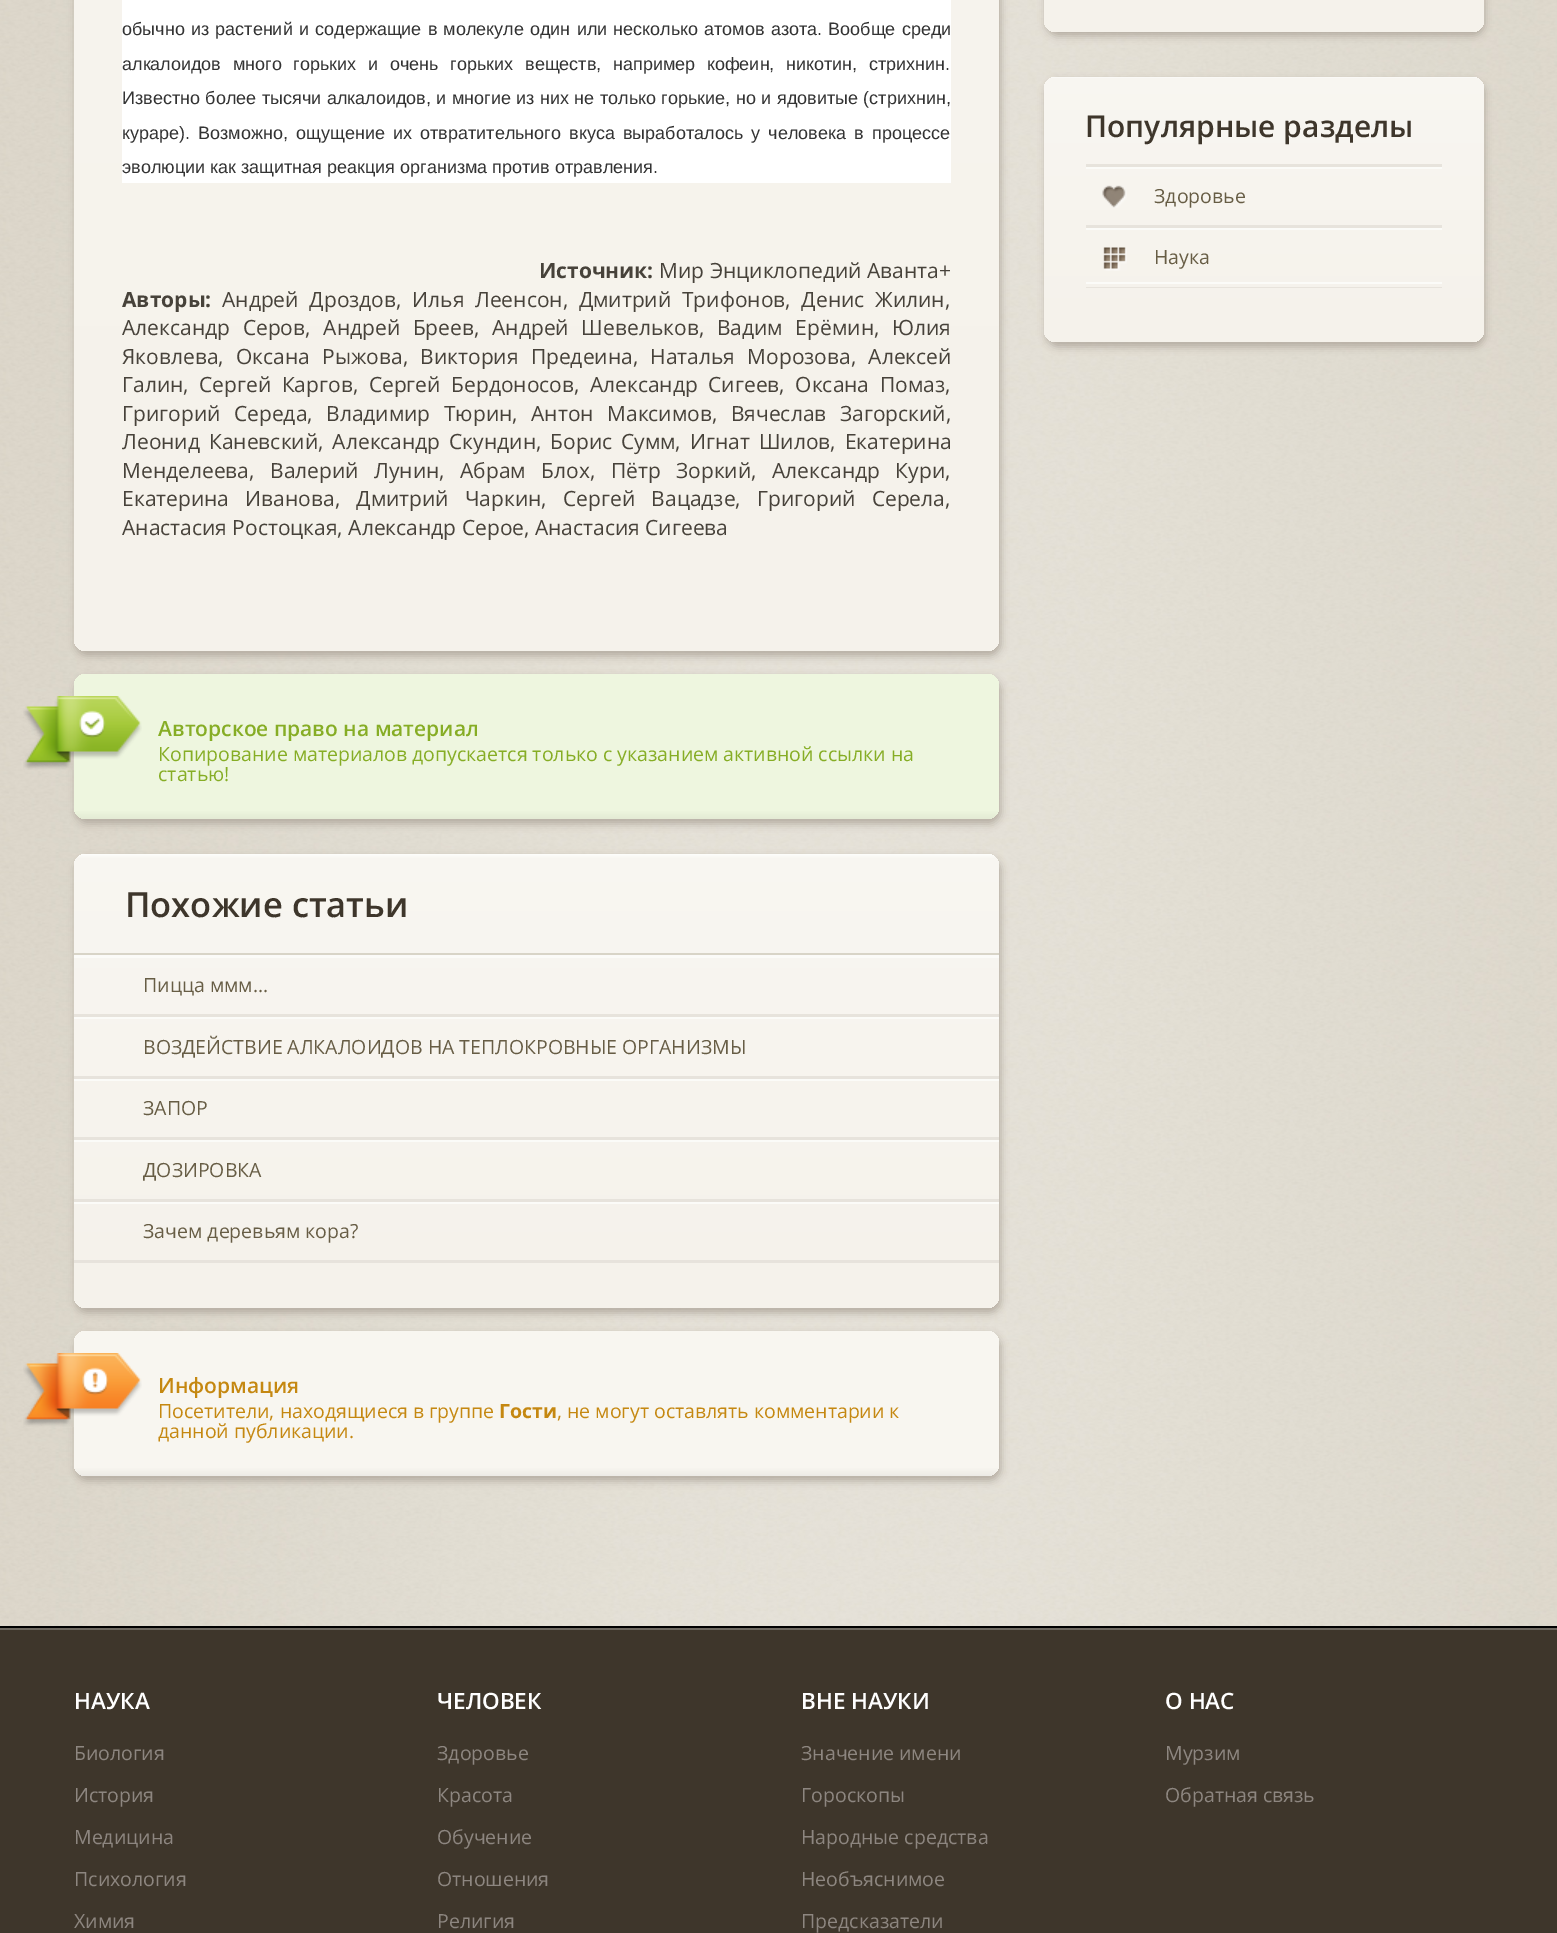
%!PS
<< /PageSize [1557 1933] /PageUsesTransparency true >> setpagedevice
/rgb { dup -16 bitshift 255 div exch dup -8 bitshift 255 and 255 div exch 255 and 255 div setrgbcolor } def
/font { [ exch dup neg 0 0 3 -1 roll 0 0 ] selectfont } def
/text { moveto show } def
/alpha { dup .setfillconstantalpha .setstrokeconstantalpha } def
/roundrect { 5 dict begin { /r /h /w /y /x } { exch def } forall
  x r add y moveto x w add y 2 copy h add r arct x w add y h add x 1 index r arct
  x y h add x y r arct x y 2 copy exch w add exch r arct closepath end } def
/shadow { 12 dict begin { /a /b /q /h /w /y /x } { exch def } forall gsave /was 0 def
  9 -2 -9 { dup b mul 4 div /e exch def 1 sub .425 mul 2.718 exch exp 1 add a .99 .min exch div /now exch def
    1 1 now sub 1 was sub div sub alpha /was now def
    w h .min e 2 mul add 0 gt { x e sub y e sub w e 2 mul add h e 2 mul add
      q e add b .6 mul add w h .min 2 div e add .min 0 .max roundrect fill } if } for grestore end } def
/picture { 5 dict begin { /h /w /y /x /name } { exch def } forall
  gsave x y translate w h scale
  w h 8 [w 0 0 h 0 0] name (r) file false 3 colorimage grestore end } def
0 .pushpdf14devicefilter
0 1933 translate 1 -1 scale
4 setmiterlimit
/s1 { /LiberationSans-Regular 18 font 16#333333 rgb } def
/s2 { /OpenSans-Bold 21 font 16#47423A rgb } def
/s3 { /OpenSans-Regular 21 font 16#47423A rgb } def
/s4 { /OpenSans-SemiBold 21 font 16#86AD25 rgb } def
/s5 { /OpenSans-Regular 19.5 font 16#86AD25 rgb } def
/s6 { /OpenSans-SemiBold 34.5 font 16#3E362B rgb } def
/s7 { /OpenSans-Regular 19.5 font 16#675D45 rgb } def
/s8 { /OpenSans-SemiBold 21 font 16#C58811 rgb } def
/s9 { /OpenSans-Regular 19.5 font 16#C58811 rgb } def
/s10 { /OpenSans-Bold 19.5 font 16#C58811 rgb } def
/s11 { /OpenSans-SemiBold 30 font 16#3E362B rgb } def
/s12 { /OpenSans-SemiBold 22.5 font 16#FFFFFF rgb } def
/s13 { /OpenSans-Regular 19.5 font 16#8D8680 rgb } def
16#FFFFFF rgb
0 0 1557 1933 rectfill
(pic1.raw) 0 0 1557 1626 picture
16#B5ADA2 rgb
75 -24 926 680 12 4 1 shadow
gsave 74 -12 925 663 12 roundrect clip newpath
<< /ShadingType 2 /ColorSpace /DeviceRGB /Coords [536 -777 536 651] /Extend [true true] /Function << /FunctionType 3 /Domain [0 1] /Functions [<< /FunctionType 2 /Domain [0 1] /C0 [0.996 0.996 0.988] /C1 [0.973 0.965 0.945] /N 1 >> << /FunctionType 2 /Domain [0 1] /C0 [0.973 0.965 0.945] /C1 [0.961 0.949 0.922] /N 1 >>] /Bounds [0.01] /Encode [0 1 0 1] >> >> shfill grestore
16#FFFFFF rgb
122 0 829 183 rectfill
/LiberationSans-Regular 18 font
16#333333 rgb
122 35 moveto 1.2 0 32 (обычно из растений и содержащие в молекуле один или несколько атомов азота. Вообще среди) widthshow
122 70 moveto 6.75 0 32 (алкалоидов много горьких и очень горьких веществ, например кофеин, никотин, стрихнин.) widthshow
122 104 moveto 0.5 0 32 (Известно более тысячи алкалоидов, и многие из них не только горькие, но и ядовитые \(стрихнин,) widthshow
122 139 moveto 3.25 0 32 (кураре\). Возможно, ощущение их отвратительного вкуса выработалось у человека в процессе) widthshow
(эволюции как защитная реакция организма против отравления.) 122 173 text
s2
(Источник:) 539 278 text
s3
(Мир Энциклопедий Аванта+) 659 278 text
s2
(Авторы:) 122 307 text
/OpenSans-Regular 21 font
222 307 moveto 5.25 0 32 (Андрей Дроздов, Илья Леенсон, Дмитрий Трифонов, Денис Жилин,) widthshow
122 335 moveto 7.25 0 32 (Александр Серов, Андрей Бреев, Андрей Шевельков, Вадим Ерёмин, Юлия) widthshow
122 364 moveto 6.75 0 32 (Яковлева, Оксана Рыжова, Виктория Предеина, Наталья Морозова, Алексей) widthshow
122 392 moveto 5 0 32 (Галин, Сергей Каргов, Сергей Бердоносов, Александр Сигеев, Оксана Помаз,) widthshow
122 421 moveto 8 0 32 (Григорий Середа, Владимир Тюрин, Антон Максимов, Вячеслав Загорский,) widthshow
122 449 moveto 3.5 0 32 (Леонид Каневский, Александр Скундин, Борис Сумм, Игнат Шилов, Екатерина) widthshow
122 478 moveto 10 0 32 (Менделеева, Валерий Лунин, Абрам Блох, Пётр Зоркий, Александр Кури,) widthshow
122 506 moveto 10.75 0 32 (Екатерина Иванова, Дмитрий Чаркин, Сергей Вацадзе, Григорий Серела,) widthshow
(Анастасия Ростоцкая, Александр Серое, Анастасия Сигеева) 122 535 text
16#B5ADA2 rgb
75 678 926 146 12 4 1 shadow
gsave 74 674 925 145 12 roundrect clip newpath
<< /ShadingType 2 /ColorSpace /DeviceRGB /Coords [536 673 536 819] /Extend [true true] /Function << /FunctionType 3 /Domain [0 1] /Functions [<< /FunctionType 2 /Domain [0 1] /C0 [0.933 0.965 0.875] /C1 [0.933 0.965 0.875] /N 1 >> << /FunctionType 2 /Domain [0 1] /C0 [0.933 0.965 0.875] /C1 [0.894 0.922 0.835] /N 1 >>] /Bounds [0.94] /Encode [0 1 0 1] >> >> shfill grestore
(pic2.raw) 23 696 119 74 picture
s4
(Авторское право на материал) 158 736 text
s5
(Копирование материалов допускается только с указанием активной ссылки на) 158 761 text
(статью!) 158 781 text
16#B5ADA2 rgb
75 858 926 455 12 4 1 shadow
gsave 74 854 925 454 12 roundrect clip newpath
<< /ShadingType 2 /ColorSpace /DeviceRGB /Coords [536 854 536 1308] /Extend [true true] /Function << /FunctionType 3 /Domain [0 1] /Functions [<< /FunctionType 2 /Domain [0 1] /C0 [0.996 0.996 0.988] /C1 [0.973 0.965 0.945] /N 1 >> << /FunctionType 2 /Domain [0 1] /C0 [0.973 0.965 0.945] /C1 [0.961 0.949 0.922] /N 1 >>] /Bounds [0.01] /Encode [0 1 0 1] >> >> shfill grestore
16#FBFAF8 rgb
74 955 925 1 rectfill
16#D8D4C7 rgb
74 953 925 2 rectfill
s6
(Похожие статьи) 125 917 text
16#FBFBF8 rgb
74 956 925 2 rectfill
16#E7E3DC rgb
74 1014 925 3 rectfill
s7
(Пицца ммм...) 143 992 text
16#FBFBF8 rgb
74 1017 925 2 rectfill
16#E7E3DC rgb
74 1076 925 3 rectfill
s7
(ВОЗДЕЙСТВИЕ АЛКАЛОИДОВ НА ТЕПЛОКРОВНЫЕ ОРГАНИЗМЫ) 143 1054 text
16#FBFBF8 rgb
74 1079 925 2 rectfill
16#E7E3DC rgb
74 1137 925 3 rectfill
s7
(ЗАПОР) 143 1115 text
16#FBFBF8 rgb
74 1140 925 2 rectfill
16#E7E3DC rgb
74 1199 925 3 rectfill
s7
(ДОЗИРОВКА) 143 1177 text
16#FBFBF8 rgb
74 1202 925 2 rectfill
16#E7E3DC rgb
74 1260 925 3 rectfill
s7
(Зачем деревьям кора?) 143 1238 text
16#B5ADA2 rgb
75 1335 926 146 12 4 1 shadow
gsave 74 1331 925 145 12 roundrect clip newpath
<< /ShadingType 2 /ColorSpace /DeviceRGB /Coords [536 1331 536 1476] /Extend [true true] /Function << /FunctionType 3 /Domain [0 1] /Functions [<< /FunctionType 2 /Domain [0 1] /C0 [0.973 0.965 0.941] /C1 [0.973 0.965 0.941] /N 1 >> << /FunctionType 2 /Domain [0 1] /C0 [0.973 0.965 0.941] /C1 [0.929 0.922 0.902] /N 1 >>] /Bounds [0.94] /Encode [0 1 0 1] >> >> shfill grestore
(pic3.raw) 23 1353 119 74 picture
s8
(Информация) 158 1393 text
s9
(Посетители, находящиеся в группе) 158 1418 text
s10
(Гости) 499 1418 text
s9
(, не могут оставлять комментарии к) 557 1418 text
(данной публикации.) 158 1438 text
16#B5ADA2 rgb
1046 -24 439 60 12 4 1 shadow
gsave 1044 -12 440 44 12 roundrect clip newpath
<< /ShadingType 2 /ColorSpace /DeviceRGB /Coords [1264 -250 1264 32] /Extend [true true] /Function << /FunctionType 3 /Domain [0 1] /Functions [<< /FunctionType 2 /Domain [0 1] /C0 [0.996 0.996 0.988] /C1 [0.973 0.965 0.945] /N 1 >> << /FunctionType 2 /Domain [0 1] /C0 [0.973 0.965 0.945] /C1 [0.961 0.949 0.922] /N 1 >>] /Bounds [0.01] /Encode [0 1 0 1] >> >> shfill grestore
1046 81 439 266 12 4 1 shadow
gsave 1044 77 440 265 12 roundrect clip newpath
<< /ShadingType 2 /ColorSpace /DeviceRGB /Coords [1264 76 1264 342] /Extend [true true] /Function << /FunctionType 3 /Domain [0 1] /Functions [<< /FunctionType 2 /Domain [0 1] /C0 [0.996 0.996 0.988] /C1 [0.973 0.965 0.945] /N 1 >> << /FunctionType 2 /Domain [0 1] /C0 [0.973 0.965 0.945] /C1 [0.961 0.949 0.922] /N 1 >>] /Bounds [0.01] /Encode [0 1 0 1] >> >> shfill grestore
s11
(Популярные разделы) 1085 137 text
16#E7E3DC rgb
1086 164 356 3 rectfill
16#FBFBF8 rgb
1086 282 356 2 rectfill
1086 167 356 2 rectfill
16#E7E3DC rgb
1086 225 356 3 rectfill
(pic4.raw) 1102 185 25 23 picture
s7
(Здоровье) 1154 203 text
16#FBFBF8 rgb
1086 228 356 2 rectfill
16#E7E3DC rgb
1086 287 356 1 rectfill
(pic5.raw) 1103 247 24 24 picture
s7
(Наука) 1154 264 text
16#3E362B rgb
0 1630 1557 303 rectfill
16#000000 rgb
0 1626 1557 2 rectfill
16#6E6961 rgb
0 1628 1557 2 rectfill
s12
(НАУКА) 74 1709 text
s13
(Биология) 74 1760 text
(История) 74 1802 text
(Медицина) 74 1844 text
(Психология) 74 1886 text
(Химия) 74 1928 text
s12
(ЧЕЛОВЕК) 437 1709 text
s13
(Здоровье) 437 1760 text
(Красота) 437 1802 text
(Обучение) 437 1844 text
(Отношения) 437 1886 text
(Религия) 437 1928 text
s12
(ВНЕ НАУКИ) 801 1709 text
s13
(Значение имени) 801 1760 text
(Гороскопы) 801 1802 text
(Народные средства) 801 1844 text
(Необъяснимое) 801 1886 text
(Предсказатели) 801 1928 text
s12
(О НАС) 1165 1709 text
s13
(Мурзим) 1165 1760 text
(Обратная связь) 1165 1802 text
.poppdf14devicefilter showpage
